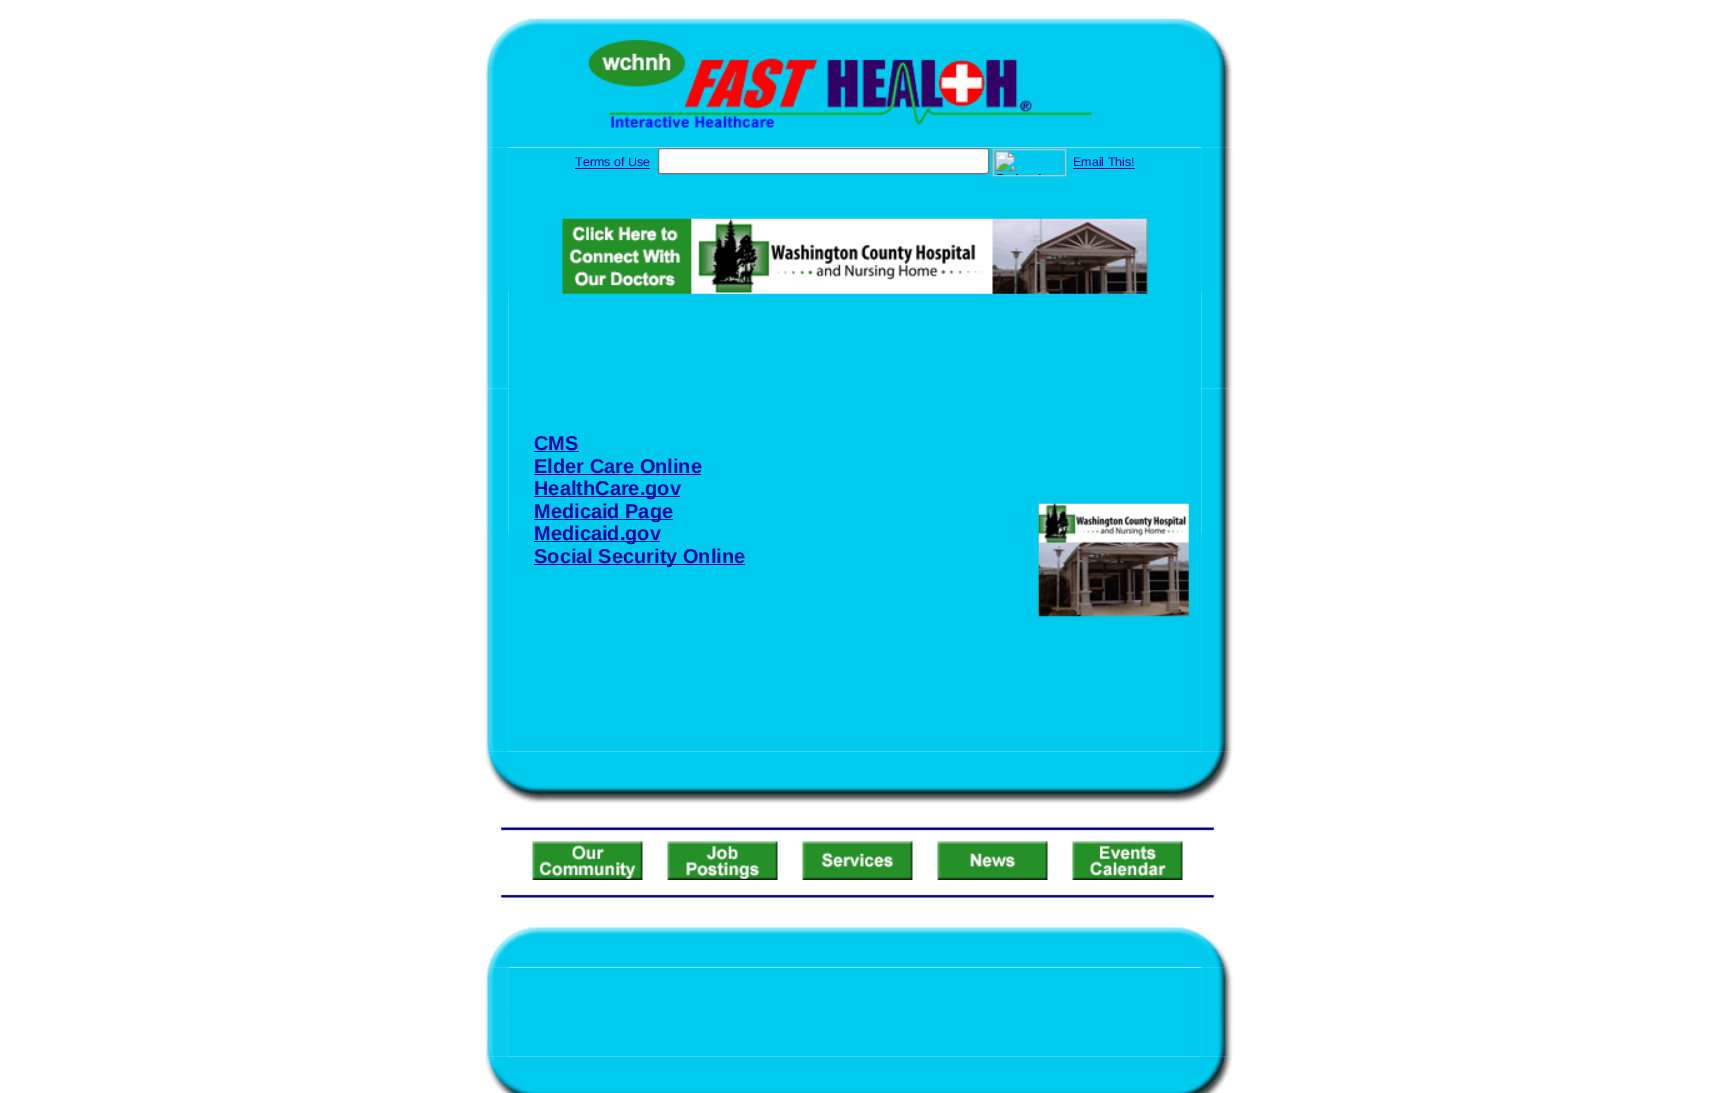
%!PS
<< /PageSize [1714 1093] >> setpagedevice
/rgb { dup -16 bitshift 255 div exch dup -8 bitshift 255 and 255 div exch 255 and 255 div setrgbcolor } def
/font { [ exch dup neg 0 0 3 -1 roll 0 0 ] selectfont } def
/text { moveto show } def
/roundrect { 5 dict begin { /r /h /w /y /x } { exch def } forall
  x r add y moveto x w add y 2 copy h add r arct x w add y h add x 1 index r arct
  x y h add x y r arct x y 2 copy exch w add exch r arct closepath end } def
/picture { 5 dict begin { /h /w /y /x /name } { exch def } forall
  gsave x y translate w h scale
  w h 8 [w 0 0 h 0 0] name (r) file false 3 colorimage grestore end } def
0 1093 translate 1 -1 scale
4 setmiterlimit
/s1 { /LiberationSans-Regular 12.5 font 16#00079D rgb } def
/s2 { /LiberationSans-Bold 20 font 16#00079D rgb } def
16#FFFFFF rgb
0 0 1714 1093 rectfill
(pic2.raw) 485 147 24 242 picture
(pic7.raw) 1201 147 32 242 picture
(pic1.raw) 485 18 747 130 picture
(pic3.raw) 487 147 22 146 picture
16#00CBEF rgb
509 148 692 603 rectfill
s1
(Terms of Use) 575 166 text
575 168 75 1 rectfill
16#FFFFFF rgb
658.5 148.5 330 25 2 roundrect gsave fill grestore
16#767676 rgb
stroke
(pic4.raw) 992 148 75 29 picture
16#C0C0C0 rgb
993.5 149.5 72 26 rectstroke
s1
(Email This!) 1073 166 text
1073 168 62 1 rectfill
(pic5.raw) 562 218 586 76 picture
s2
(CMS) 534 450 text
534 451 45 1 rectfill
(Elder Care Online) 534 473 text
534 474 167 1 rectfill
534 496 146 1 rectfill
(HealthCare.gov) 534 495 text
534 519 139 1 rectfill
(Medicaid Page) 534 518 text
534 541 126 1 rectfill
(Medicaid.gov) 534 540 text
534 564 211 1 rectfill
(Social Security Online) 534 563 text
(pic6.raw) 1038 503 151 114 picture
(pic8.raw) 1201 147 30 146 picture
(pic9.raw) 485 388 24 364 picture
(pic10.raw) 487 533 22 219 picture
(pic11.raw) 1201 388 32 364 picture
(pic12.raw) 1201 533 30 219 picture
(pic13.raw) 485 751 747 53 picture
(pic14.raw) 501 827 713 4 picture
(pic15.raw) 532 841 111 39 picture
(pic16.raw) 667 841 111 39 picture
(pic17.raw) 802 841 111 39 picture
(pic18.raw) 937 841 111 39 picture
(pic19.raw) 1072 841 111 39 picture
(pic20.raw) 501 894 713 4 picture
(pic22.raw) 485 967 24 45 picture
(pic24.raw) 1201 967 32 45 picture
(pic21.raw) 486 927 746 41 picture
(pic26.raw) 485 1011 24 46 picture
(pic23.raw) 485 967 24 45 picture
16#00CBEF rgb
509 968 692 88 rectfill
(pic28.raw) 1201 1011 32 46 picture
(pic25.raw) 1201 967 32 45 picture
(pic27.raw) 485 1011 24 46 picture
(pic29.raw) 1201 1011 30 46 picture
(pic30.raw) 485 1056 747 37 picture
showpage
